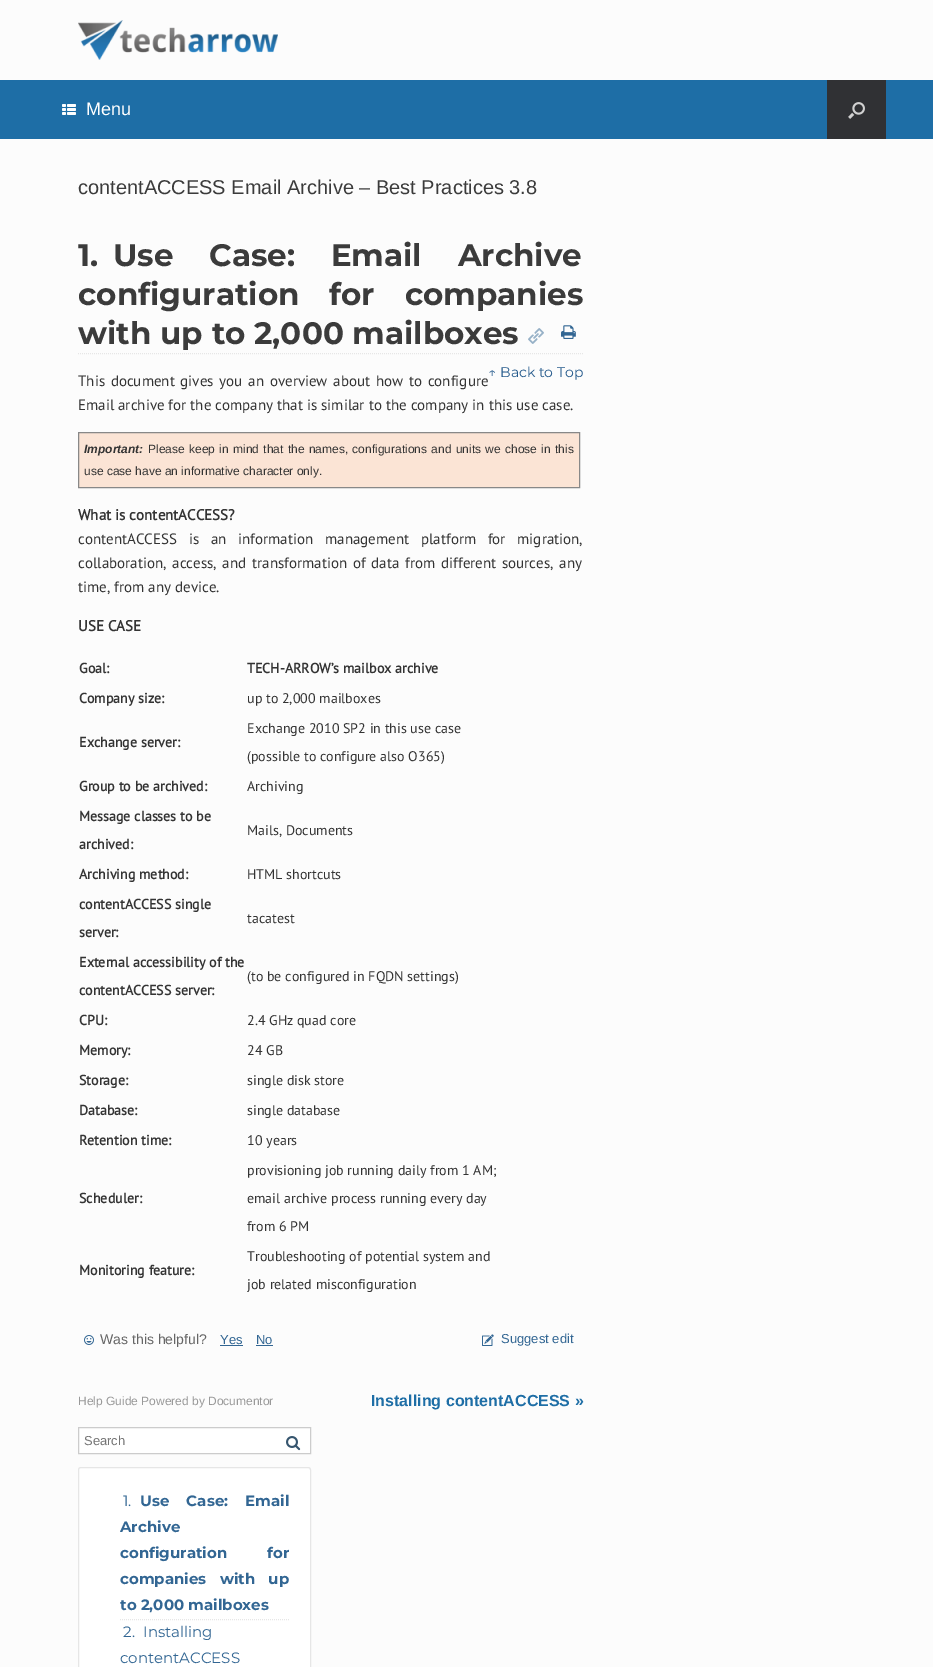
%!PS
<< /PageSize [933 1667] >> setpagedevice
/rgb { dup -16 bitshift 255 div exch dup -8 bitshift 255 and 255 div exch 255 and 255 div setrgbcolor } def
/font { [ exch dup neg 0 0 3 -1 roll 0 0 ] selectfont } def
/text { moveto show } def
/picture { 5 dict begin { /h /w /y /x /name } { exch def } forall
  gsave x y translate w h scale
  w h 8 [w 0 0 h 0 0] name (r) file false 3 colorimage grestore end } def
0 1667 translate 1 -1 scale
4 setmiterlimit
/s1 { /LiberationSans-Regular 18 font 16#FFFFFF rgb } def
/s2 { /LiberationSans-Regular 20 font 16#3B3B3B rgb } def
/s3 { /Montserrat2-Thin 31 font 16#3B3B3B rgb } def
/s4 { /Montserrat-Thin 14 font 16#255A8C rgb } def
/s5 { /PTSans-Regular 15 font 16#333333 rgb } def
/s6 { /LiberationSans-BoldItalic 12 font 16#333333 rgb } def
/s7 { /LiberationSans-Regular 12 font 16#333333 rgb } def
/s8 { /PTSans-Bold 15 font 16#333333 rgb } def
/s9 { /PTSans-Bold 14 font 16#333333 rgb } def
/s10 { /PTSans-Regular 14 font 16#333333 rgb } def
/s11 { /LiberationSans-Regular 14 font 16#666666 rgb } def
/s12 { /LiberationSans-Regular 13 font 16#326693 rgb } def
/s13 { /LiberationSans-Bold 16 font 16#1E6EA6 rgb } def
/s14 { /LiberationSans-Regular 12 font 16#999999 rgb } def
/s15 { /LiberationSans-Regular 13 font 16#757575 rgb } def
/s16 { /Montserrat-Thin 15 font 16#326693 rgb } def
/s17 { /Montserrat2-Thin 15 font 16#326693 rgb } def
16#FCFCFC rgb
0 0 933 1667 rectfill
(pic1.raw) 78 20 200 40 picture
16#1E6EA6 rgb
0 80 933 59 rectfill
(pic2.raw) 62 104 14 11 picture
s1
(Menu) 86 115 text
16#303134 rgb
827 80 59 59 rectfill
(pic3.raw) 848 102 17 17 picture
s2
(contentACCESS Email Archive – Best Practices 3.8) 78 194 text
16#E6E6E6 rgb
[1 1] 0 setdash
78 353.5 moveto 583 353.5 lineto stroke
s3
(1.) 78 266 text
113 266 moveto 27 0 32 (Use Case: Email Archive) widthshow
78 305 moveto 21 0 32 (configuration for companies) widthshow
(with up to 2,000 mailboxes) 78 344 text
(pic4.raw) 528 328 16 16 picture
(pic5.raw) 561 325 15 14 picture
s4
(↑ Back to Top) 488 377 text
/PTSans-Regular 15 font
16#333333 rgb
78 386 moveto 1.75 0 32 (This document gives you an overview about how to configure) widthshow
(Email archive for the company that is similar to the company in this use case.) 78 410 text
16#FBE4D5 rgb
78.5 432.5 moveto 579.5 432.5 lineto 579.5 487.5 lineto 78.5 487.5 lineto closepath gsave fill grestore
16#888888 rgb
[] 0 setdash
stroke
s6
(Important:) 84 453 text
/LiberationSans-Regular 12 font
148 453 moveto 1 0 32 (Please keep in mind that the names, configurations and units we chose in this) widthshow
(use case have an informative character only.) 84 475 text
s8
(What is contentACCESS?) 78 520 text
/PTSans-Regular 15 font
78 544 moveto 7.75 0 32 (contentACCESS is an information management platform for migration,) widthshow
78 568 moveto 1.75 0 32 (collaboration, access, and transformation of data from different sources, any) widthshow
(time, from any device.) 78 592 text
s8
(USE CASE) 78 631 text
s9
(Goal:) 79 673 text
(TECH-ARROW’s mailbox archive) 247 673 text
(Company size:) 79 703 text
s10
(up to 2,000 mailboxes) 247 703 text
s9
(Exchange server:) 79 747 text
s10
(Exchange 2010 SP2 in this use case) 247 733 text
(\(possible to configure also O365\)) 247 761 text
s9
(Group to be archived:) 79 791 text
s10
(Archiving) 247 791 text
s9
(Message classes to be) 79 821 text
(archived:) 79 849 text
s10
(Mails, Documents) 247 835 text
s9
(Archiving method:) 79 879 text
s10
(HTML shortcuts) 247 879 text
s9
(contentACCESS single) 79 909 text
(server:) 79 937 text
s10
(tacatest) 247 923 text
s9
(External accessibility of the) 79 967 text
(contentACCESS server:) 79 995 text
s10
(\(to be configured in FQDN settings\)) 247 981 text
s9
(CPU:) 79 1025 text
s10
(2.4 GHz quad core) 247 1025 text
s9
(Memory:) 79 1055 text
s10
(24 GB) 247 1055 text
s9
(Storage:) 79 1085 text
s10
(single disk store) 247 1085 text
s9
(Database:) 79 1115 text
s10
(single database) 247 1115 text
s9
(Retention time:) 79 1145 text
s10
(10 years) 247 1145 text
s9
(Scheduler:) 79 1203 text
s10
(provisioning job running daily from 1 AM;) 247 1175 text
(email archive process running every day) 247 1203 text
(from 6 PM) 247 1231 text
s9
(Monitoring feature:) 79 1275 text
s10
(Troubleshooting of potential system and) 247 1261 text
(job related misconfiguration) 247 1289 text
(pic6.raw) 84 1335 10 10 picture
s11
(Was this helpful?) 100 1344 text
s12
(Yes) 220 1344 text
220 1345 23 1 rectfill
(No) 256 1344 text
256 1345 17 1 rectfill
(pic7.raw) 482 1334 12 12 picture
(Suggest edit) 501 1343 text
s13
(Installing contentACCESS ») 371 1406 text
s14
(Help Guide Powered by Documentor) 78 1405 text
16#FFFFFF rgb
78.5 1427.5 moveto 310.5 1427.5 lineto 310.5 1453.5 lineto 78.5 1453.5 lineto closepath gsave fill grestore
16#CCCCCC rgb
stroke
s15
(Search) 84 1445 text
(pic8.raw) 286 1436 15 15 picture
16#FFFFFF rgb
81 1468 moveto 308 1468 lineto 309 1468 310 1469 310 1470 curveto 310 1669 lineto 79 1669 lineto 79 1470 lineto 79 1469 80 1468 81 1468 curveto closepath fill
16#E6E6E6 rgb
81 1467.5 moveto 308 1467.5 lineto 309.5 1467.5 310.5 1468.5 310.5 1470 curveto 310.5 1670.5 lineto 78.5 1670.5 lineto 78.5 1470 lineto 78.5 1468.5 79.5 1467.5 81 1467.5 curveto closepath stroke
s16
(1.) 123 1506 text
/Montserrat2-Thin 15 font
140 1506 moveto 13 0 32 (Use Case: Email) widthshow
(Archive) 120 1532 text
120 1558 moveto 36 0 32 (configuration for) widthshow
120 1584 moveto 9 0 32 (companies with up) widthshow
(to 2,000 mailboxes) 120 1610 text
16#E6E6E6 rgb
[1 1] 0 setdash
120 1619.5 moveto 289 1619.5 lineto stroke
s16
(2.) 123 1637 text
(Installing) 143 1637 text
(contentACCESS) 120 1663 text
showpage
